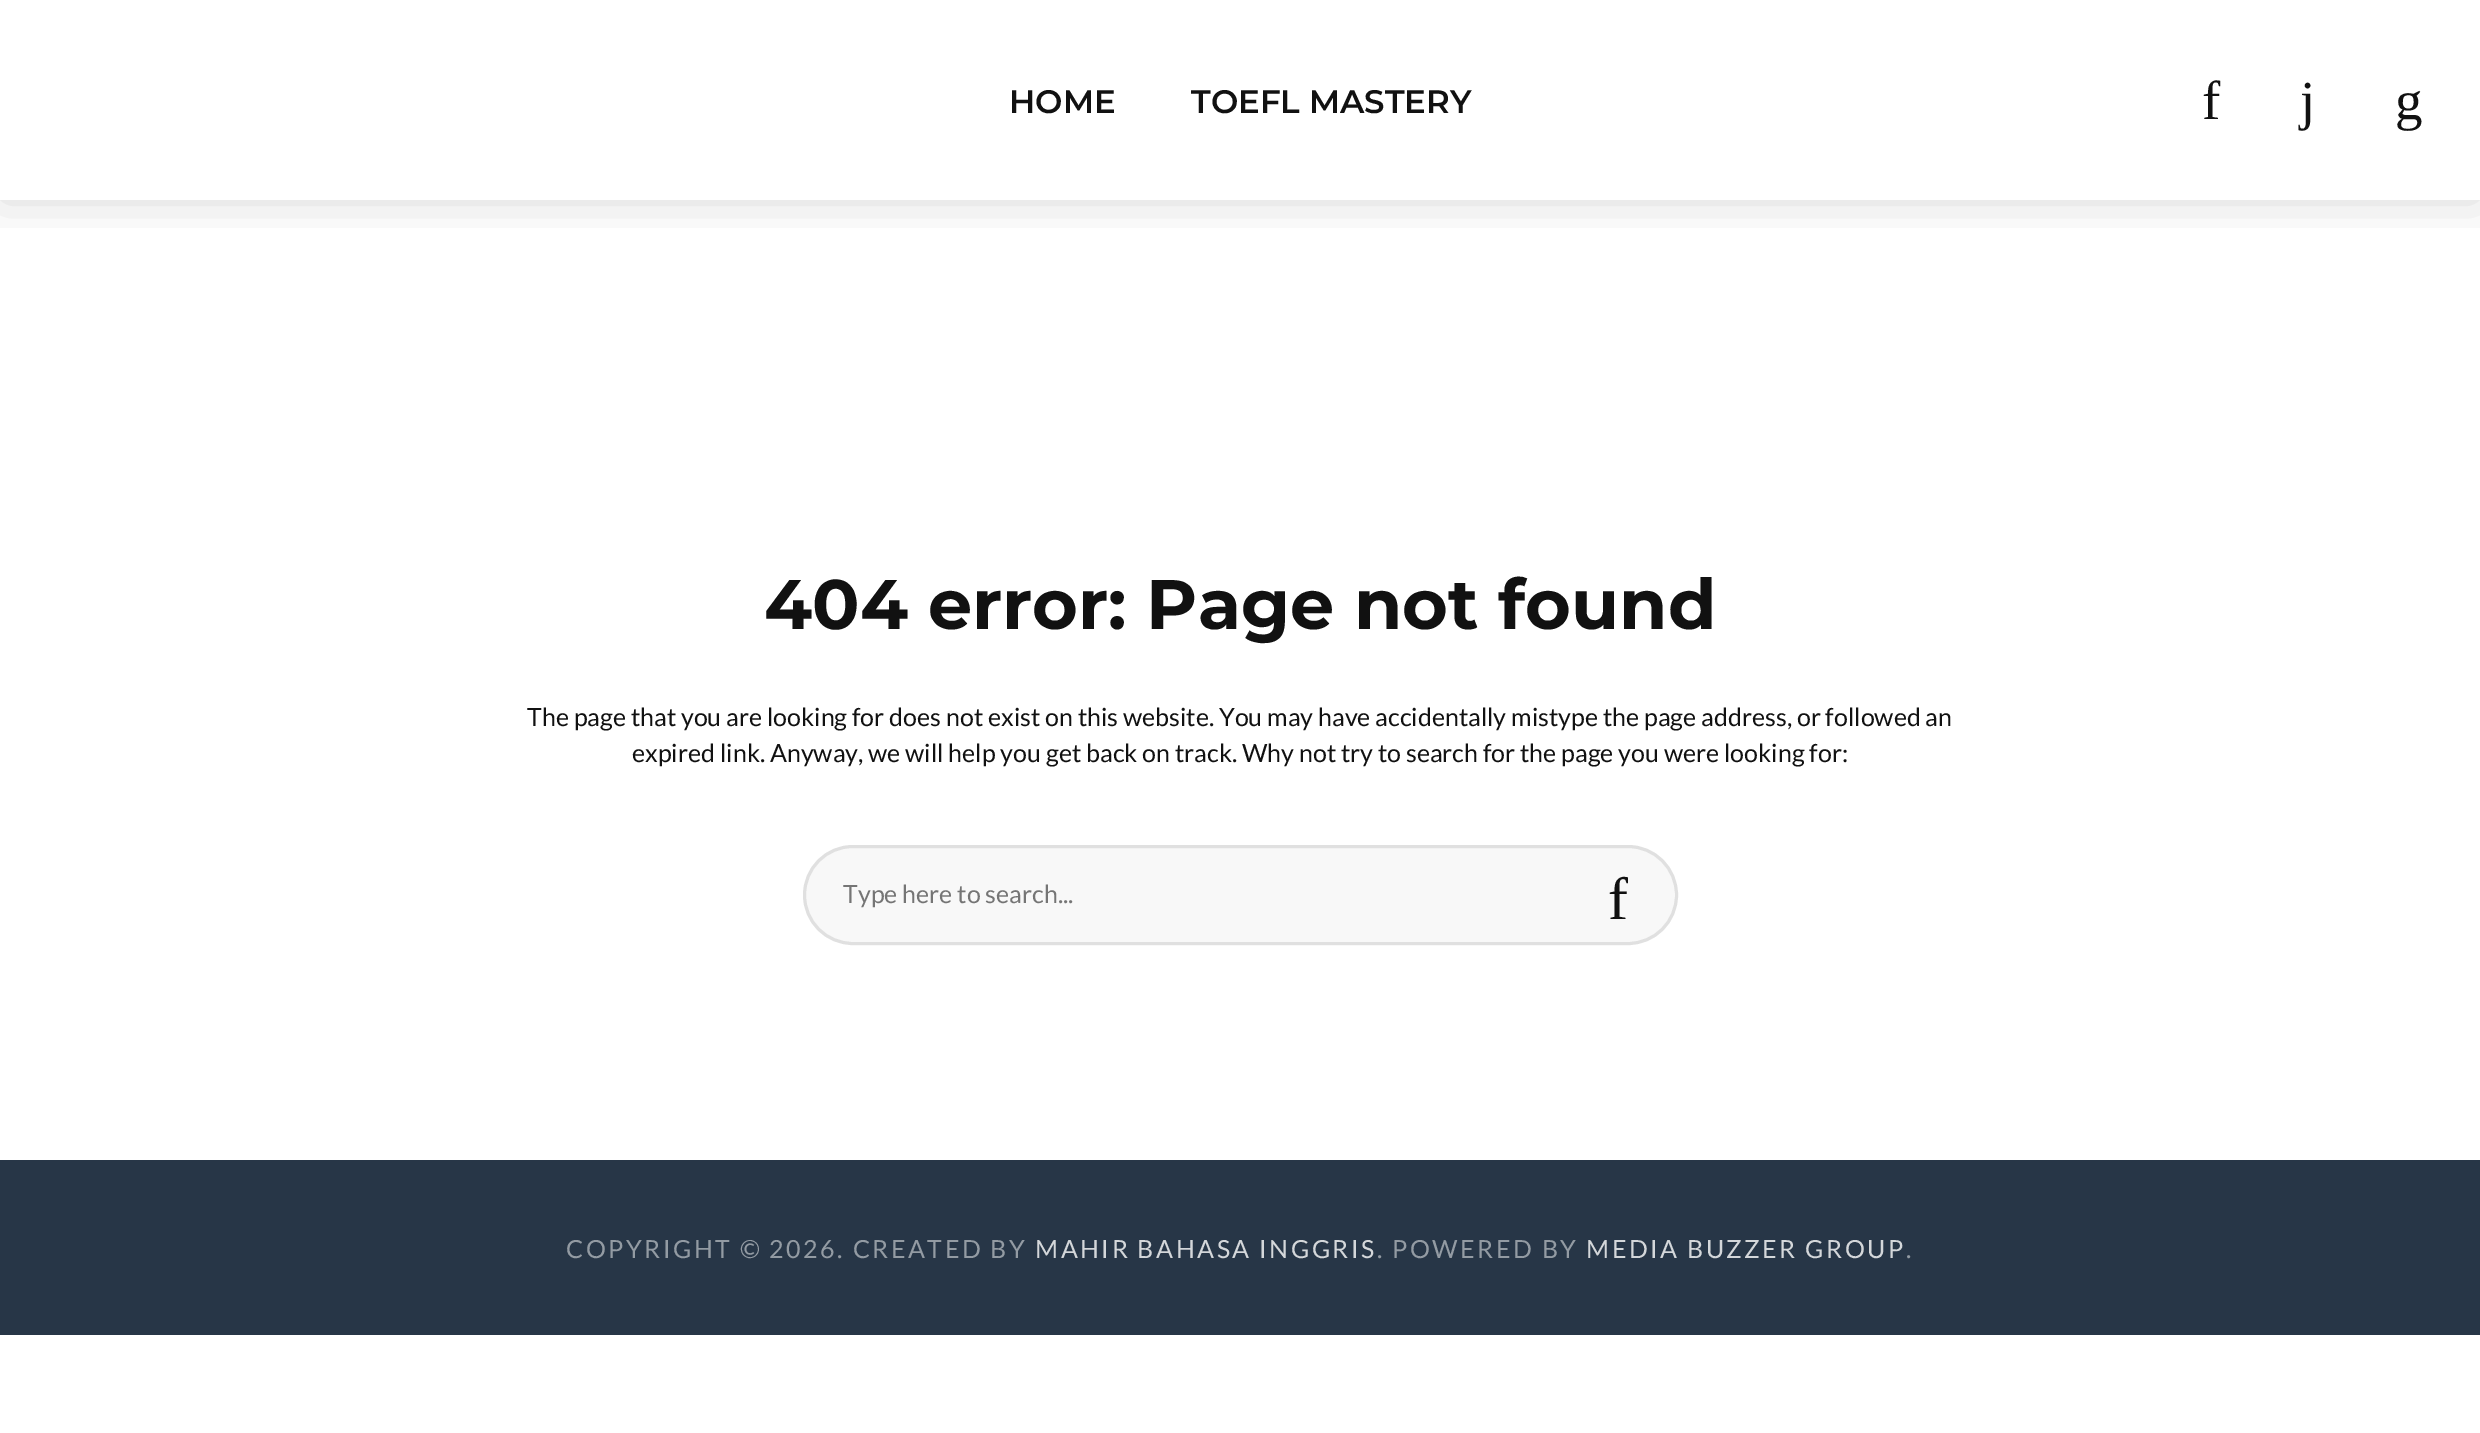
%!PS
<< /PageSize [2480 1433] /PageUsesTransparency true >> setpagedevice
/rgb { dup -16 bitshift 255 div exch dup -8 bitshift 255 and 255 div exch 255 and 255 div setrgbcolor } def
/font { [ exch dup neg 0 0 3 -1 roll 0 0 ] selectfont } def
/text { moveto show } def
/alpha { dup .setfillconstantalpha .setstrokeconstantalpha } def
/roundrect { 5 dict begin { /r /h /w /y /x } { exch def } forall
  x r add y moveto x w add y 2 copy h add r arct x w add y h add x 1 index r arct
  x y h add x y r arct x y 2 copy exch w add exch r arct closepath end } def
/shadow { 12 dict begin { /a /b /q /h /w /y /x } { exch def } forall gsave /was 0 def
  9 -2 -9 { dup b mul 4 div /e exch def 1 sub .425 mul 2.718 exch exp 1 add a .99 .min exch div /now exch def
    1 1 now sub 1 was sub div sub alpha /was now def
    w h .min e 2 mul add 0 gt { x e sub y e sub w e 2 mul add h e 2 mul add
      q e add b .6 mul add w h .min 2 div e add .min 0 .max roundrect fill } if } for grestore end } def
0 .pushpdf14devicefilter
0 1433 translate 1 -1 scale
4 setmiterlimit
/s1 { /Montserrat-SemiBold 32.5 font 16#111111 rgb } def
/s2 { /LiberationSerif-Regular 55 font 16#111111 rgb } def
/s3 { /Montserrat-Bold 70 font 16#111111 rgb } def
/s4 { /Lato-Regular 25 font 16#111111 rgb } def
/s5 { /Lato-Regular 25 font 16#757575 rgb } def
/s6 { /LiberationSerif-Regular 60 font 16#111111 rgb } def
16#FFFFFF rgb
0 0 2480 1433 rectfill
gsave
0 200 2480 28 rectclip
16#000000 rgb
0 0 2480 200 0 25 0.15 shadow
grestore
s1
(HOME) 1009 113 text
(TOEFL MASTERY) 1191 113 text
s2
(f) 2202 119 text
(j) 2300 119 text
(g) 2395 119 text
s3
(404 error: Page not found) 764 629 text
s4
(The page that you are looking for does not exist on this website. You may have accidentally mistype the page address, or followed an) 527 726 text
(expired link. Anyway, we will help you get back on track. Why not try to search for the page you were looking for:) 632 762 text
16#F8F8F8 rgb
803 845 875 100 50 roundrect fill
0.1 alpha
16#111111 rgb
3 setlinewidth
804.5 846.5 872 97 48.5 roundrect stroke
1 alpha
s5
(Type here to search...) 843 903 text
s6
(f) 1608 919 text
16#273647 rgb
0 1160 2480 175 rectfill
/Lato-Regular 25 font
16#939BA3 rgb
566 1258 moveto 2.5 0 (COPYRIGHT © 2026. CREATED BY) ashow
16#D4D7DA rgb
1035 1258 moveto 2.5 0 (MAHIR BAHASA INGGRIS) ashow
16#939BA3 rgb
1377 1258 moveto 2.5 0 (. POWERED BY) ashow
16#D4D7DA rgb
1586 1258 moveto 2.5 0 (MEDIA BUZZER GROUP) ashow
16#939BA3 rgb
1906 1258 moveto 2.5 0 (.) ashow
.poppdf14devicefilter showpage
